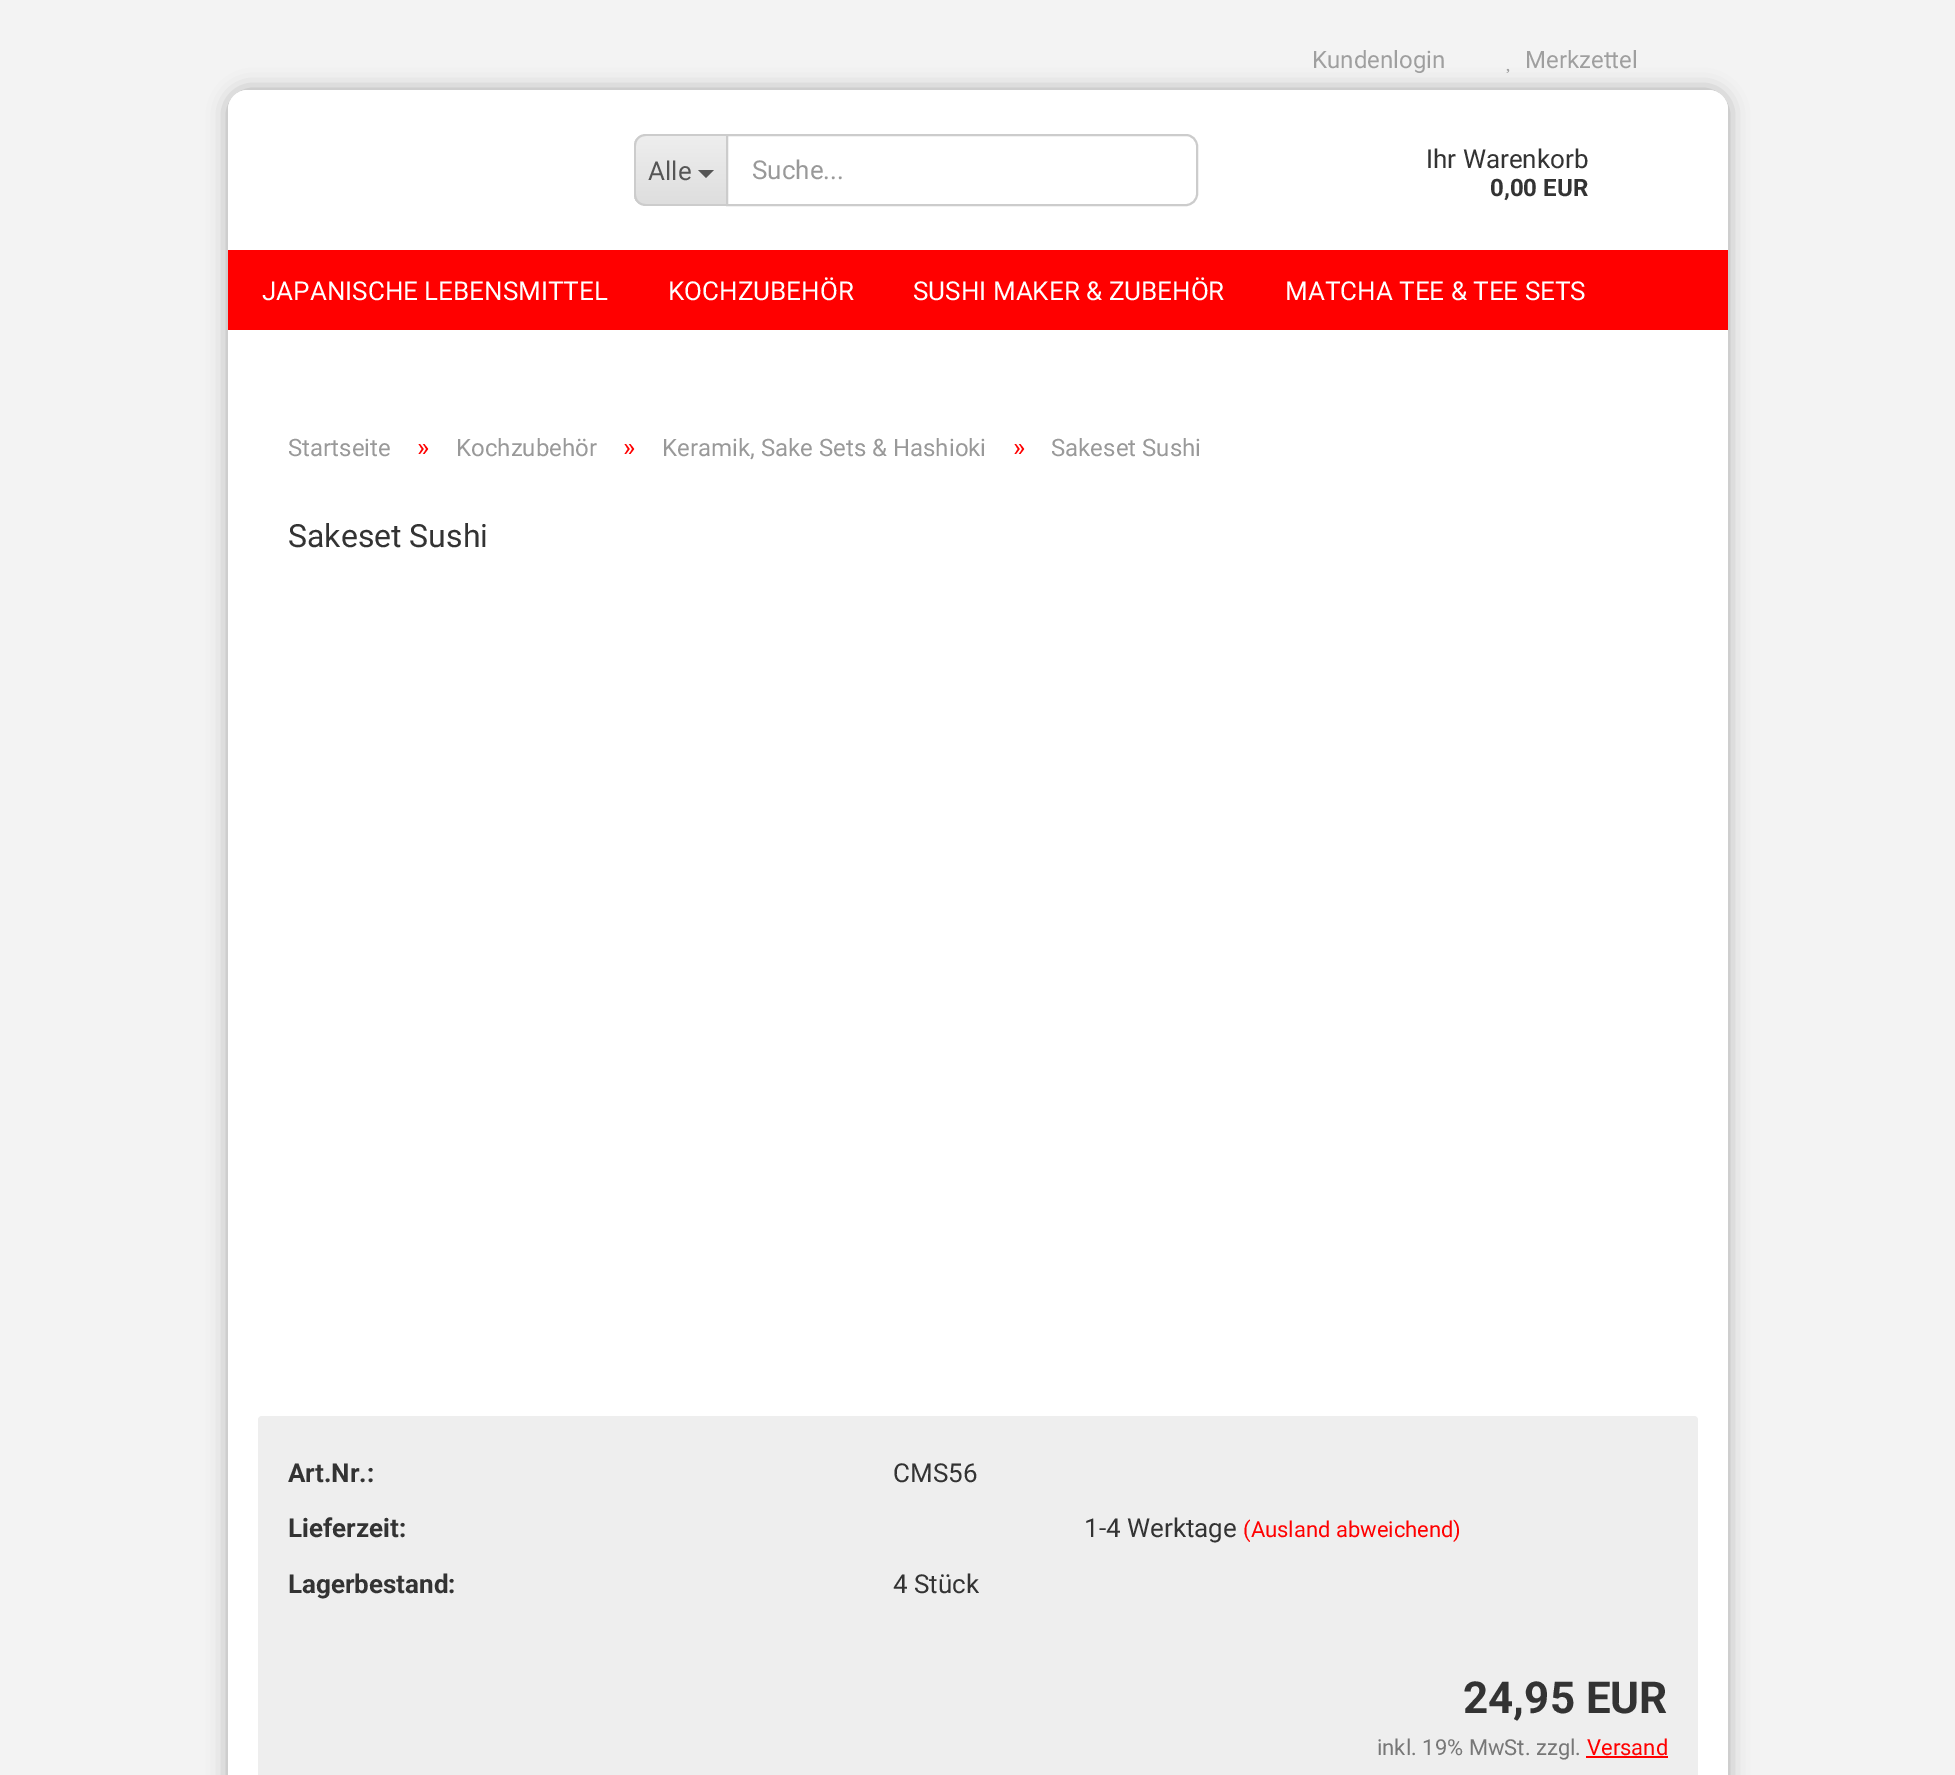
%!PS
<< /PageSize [1955 1775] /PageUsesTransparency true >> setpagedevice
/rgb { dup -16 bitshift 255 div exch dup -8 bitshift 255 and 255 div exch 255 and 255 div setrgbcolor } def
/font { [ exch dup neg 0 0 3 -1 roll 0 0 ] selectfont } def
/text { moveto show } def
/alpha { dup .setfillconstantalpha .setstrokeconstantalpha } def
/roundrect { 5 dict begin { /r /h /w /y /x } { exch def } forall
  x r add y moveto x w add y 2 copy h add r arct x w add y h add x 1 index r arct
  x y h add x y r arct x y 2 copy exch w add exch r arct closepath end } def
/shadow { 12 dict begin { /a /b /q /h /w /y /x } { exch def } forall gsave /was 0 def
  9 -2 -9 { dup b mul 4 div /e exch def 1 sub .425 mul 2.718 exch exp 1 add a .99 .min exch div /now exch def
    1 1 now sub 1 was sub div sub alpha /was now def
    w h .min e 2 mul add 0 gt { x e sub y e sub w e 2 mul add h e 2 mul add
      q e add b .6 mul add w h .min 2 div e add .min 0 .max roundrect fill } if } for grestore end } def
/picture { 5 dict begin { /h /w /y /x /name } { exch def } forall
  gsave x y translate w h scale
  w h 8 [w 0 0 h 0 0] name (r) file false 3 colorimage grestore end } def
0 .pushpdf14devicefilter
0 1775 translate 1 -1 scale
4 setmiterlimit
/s1 { /Roboto-Regular 24 font 16#9F9F9F rgb } def
/s2 { /Roboto-Regular 26 font 16#555555 rgb } def
/s3 { /Roboto-Regular 26 font 16#999999 rgb } def
/s4 { /Roboto-Regular 26 font 16#333333 rgb } def
/s5 { /Roboto-Bold 24 font 16#333333 rgb } def
/s6 { /Roboto-Regular 26 font 16#FFFFFF rgb } def
/s7 { /Roboto-Regular 24 font 16#999999 rgb } def
/s8 { /Roboto-Regular 26 font 16#FF0000 rgb } def
/s9 { /Roboto-Regular 32 font 16#333333 rgb } def
/s10 { /Roboto-Bold 26 font 16#333333 rgb } def
/s11 { /Roboto-Regular 22 font 16#FF0000 rgb } def
/s12 { /Roboto-Bold 44 font 16#333333 rgb } def
/s13 { /Roboto-Regular 22 font 16#777777 rgb } def
16#F3F3F3 rgb
0 0 1955 1775 rectfill
16#000000 rgb
228 90 1500 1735 20 10 0.3 shadow
16#FFFFFF rgb
228 90 1500 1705 20 roundrect fill
248 90 moveto 1708 90 lineto 1719 90 1728 99 1728 110 curveto 1728 386 lineto 1728 388 1726 390 1724 390 curveto 232 390 lineto 230 390 228 388 228 386 curveto 228 110 lineto 228 99 237 90 248 90 curveto closepath fill
s1
(Kundenlogin) 1312 68 text
(Merkzettel) 1525 68 text
(pic1.raw) 1506 68 4 5 picture
gsave
646 134 moveto 726 134 lineto 726 206 lineto 646 206 lineto 639.5 206 634 200.5 634 194 curveto 634 146 lineto 634 139.5 639.5 134 646 134 curveto closepath clip newpath
gsave 634 136 moveto 726 136 lineto 726 204 lineto 634 204 lineto closepath clip newpath
<< /ShadingType 2 /ColorSpace /DeviceRGB /Coords [681 136 681 204] /Extend [true true] /Function << /FunctionType 2 /Domain [0 1] /C0 [0.933 0.933 0.933] /C1 [0.871 0.871 0.871] /N 1 >> >> shfill grestore
grestore
16#CCCCCC rgb
646 134 moveto 726 134 lineto 726 206 lineto 646 206 lineto 639 206 634 201 634 194 curveto 634 146 lineto 634 139 639 134 646 134 curveto closepath 646 136 moveto 726 136 lineto 726 204 lineto 646 204 lineto 640 204 636 200 636 194 curveto 636 146 lineto 636 140 640 136 646 136 curveto closepath eofill
s2
(Alle) 648 180 text
698 170 moveto 714 170 lineto 706 178 lineto closepath fill
16#CCCCCC rgb
2 setlinewidth
727 135 moveto 1186 135 lineto 1192 135 1197 140 1197 146 curveto 1197 194 lineto 1197 200 1192 205 1186 205 curveto 727 205 lineto closepath stroke
s3
(Suche...) 752 179 text
s4
(Ihr Warenkorb) 1426 168 text
s5
(0,00 EUR) 1490 196 text
16#FF0000 rgb
228 250 1500 80 rectfill
s6
(JAPANISCHE LEBENSMITTEL) 262 300 text
(KOCHZUBEHÖR) 668 300 text
(SUSHI MAKER & ZUBEHÖR) 913 300 text
(MATCHA TEE & TEE SETS) 1285 300 text
s7
(Startseite) 288 456 text
s8
(») 417 456 text
s7
(Kochzubehör) 456 456 text
s8
(») 623 456 text
s7
(Keramik, Sake Sets & Hashioki) 662 456 text
s8
(») 1013 456 text
s7
(Sakeset Sushi) 1051 456 text
s9
(Sakeset Sushi) 288 547 text
16#EEEEEE rgb
258 1416 1440 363 4 roundrect fill
s10
(Art.Nr.:) 288 1482 text
s4
(CMS56) 893 1482 text
s10
(Lieferzeit:) 288 1537 text
s4
(1-4 Werktage) 1084 1537 text
s11
(\(Ausland abweichend\)) 1243 1537 text
s10
(Lagerbestand:) 288 1593 text
s4
(4 Stück) 893 1593 text
s12
(24,95 EUR) 1463 1713 text
s13
(inkl. 19% MwSt. zzgl.) 1377 1755 text
s11
(Versand) 1587 1755 text
1586 1756 82 2 rectfill
.poppdf14devicefilter showpage
